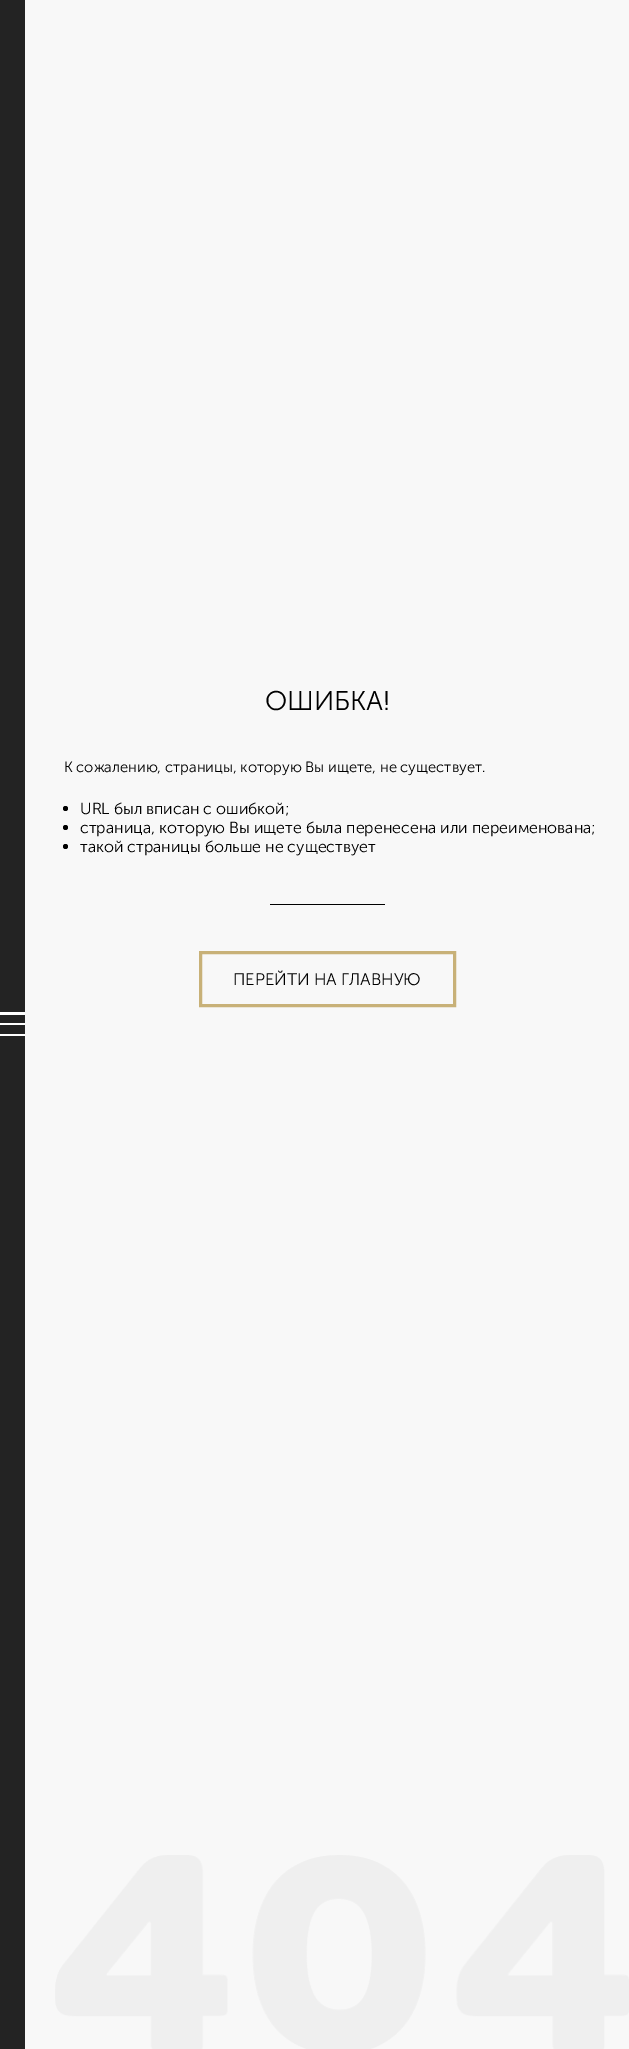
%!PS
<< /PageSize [629 2049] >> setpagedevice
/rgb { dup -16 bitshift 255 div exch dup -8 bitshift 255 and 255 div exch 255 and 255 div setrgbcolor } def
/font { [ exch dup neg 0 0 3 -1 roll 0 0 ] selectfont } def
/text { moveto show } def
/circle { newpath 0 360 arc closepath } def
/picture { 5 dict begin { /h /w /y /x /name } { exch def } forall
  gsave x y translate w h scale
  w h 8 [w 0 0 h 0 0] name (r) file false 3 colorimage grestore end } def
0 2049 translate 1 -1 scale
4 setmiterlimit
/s1 { /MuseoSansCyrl-Light 27 font 16#000000 rgb } def
/s2 { /MuseoSansCyrl-Light 14.8 font 16#000000 rgb } def
/s3 { /MuseoSansCyrl-Light 16 font 16#000000 rgb } def
/s4 { /MuseoSansCyrl-Light 16.75 font 16#000000 rgb } def
16#F8F8F8 rgb
0 0 629 2049 rectfill
16#232323 rgb
0 0 25 2049 rectfill
16#FFFFFF rgb
0 1034 25 2 rectfill
0 1023 25 2 rectfill
0 1012 25 3 rectfill
(pic1.raw) 55 1855 574 194 picture
s1
(ОШИБКА!) 265 710 text
s2
(К сожалению, страницы, которую Вы ищете, не существует.) 64 772 text
65.5 808.5 2.5 circle fill
s3
(URL был вписан с ошибкой;) 80 814 text
65.5 827.5 2.5 circle fill
(страница, которую Вы ищете была перенесена или переименована;) 80 833 text
65.5 846.5 2.5 circle fill
(такой страницы больше не существует) 80 852 text
270 904 115 1 rectfill
16#C8B178 rgb
3 setlinewidth
200.5 952.5 254 53 rectstroke
s4
(ПЕРЕЙТИ НА ГЛАВНУЮ) 233 985 text
showpage
